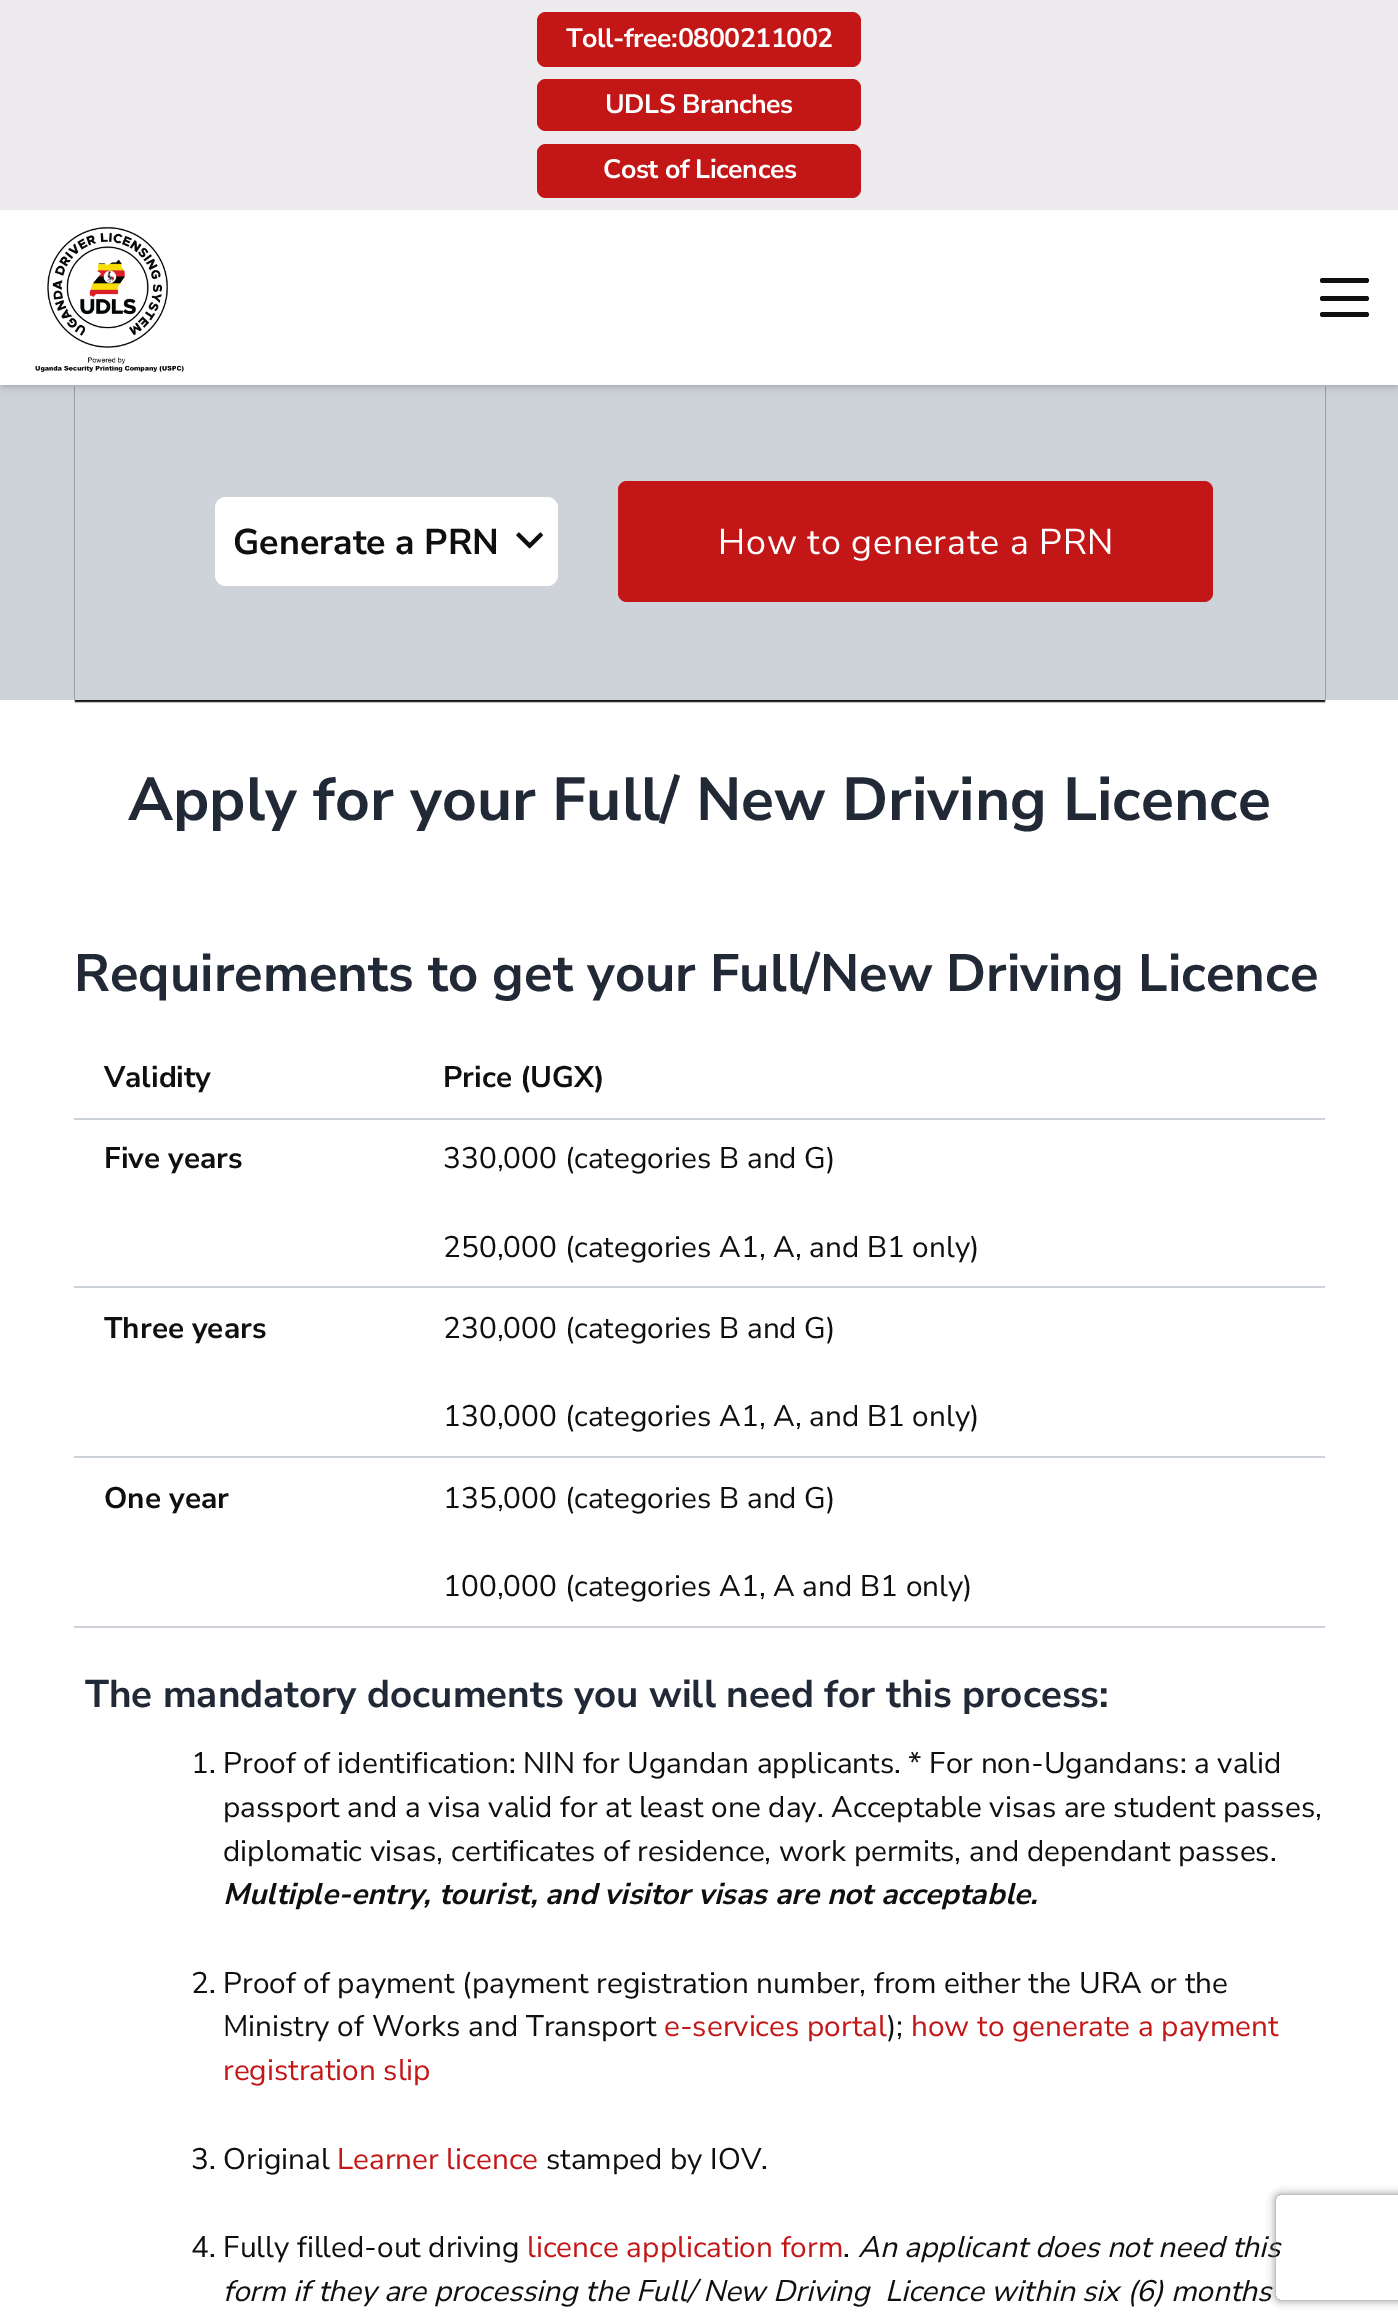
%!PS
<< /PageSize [1398 2323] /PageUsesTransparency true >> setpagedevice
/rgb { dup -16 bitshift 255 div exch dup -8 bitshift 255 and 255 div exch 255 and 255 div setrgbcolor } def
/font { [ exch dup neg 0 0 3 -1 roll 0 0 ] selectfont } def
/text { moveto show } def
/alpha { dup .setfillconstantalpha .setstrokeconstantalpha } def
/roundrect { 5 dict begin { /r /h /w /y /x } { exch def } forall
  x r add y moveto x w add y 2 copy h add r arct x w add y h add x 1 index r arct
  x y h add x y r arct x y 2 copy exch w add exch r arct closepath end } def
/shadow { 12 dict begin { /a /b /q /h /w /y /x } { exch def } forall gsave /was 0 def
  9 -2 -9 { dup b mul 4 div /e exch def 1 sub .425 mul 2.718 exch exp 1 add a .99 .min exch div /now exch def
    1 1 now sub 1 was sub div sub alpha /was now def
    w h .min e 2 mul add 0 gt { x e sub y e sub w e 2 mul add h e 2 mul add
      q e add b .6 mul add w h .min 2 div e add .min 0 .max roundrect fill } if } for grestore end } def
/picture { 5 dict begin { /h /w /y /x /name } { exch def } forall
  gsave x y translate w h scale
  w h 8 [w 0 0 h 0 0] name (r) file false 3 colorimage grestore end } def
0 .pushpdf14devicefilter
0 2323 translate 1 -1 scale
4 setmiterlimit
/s1 { /NunitoSans-Bold 35.75 font 16#0F0F0F rgb } def
/s2 { /NunitoSans-Bold 60.6 font 16#212936 rgb } def
/s3 { /NunitoSans-Bold 52.5 font 16#212936 rgb } def
/s4 { /NunitoSans-Bold 29.75 font 16#0F0F0F rgb } def
/s5 { /NunitoSans-Regular 29.75 font 16#0F0F0F rgb } def
/s6 { /NunitoSans-Bold 38.5 font 16#212936 rgb } def
/s7 { /NunitoSans-BoldItalic 29.75 font 16#0F0F0F rgb } def
/s8 { /NunitoSans-Regular 29.75 font 16#C31616 rgb } def
/s9 { /NunitoSans-Italic 29.75 font 16#0F0F0F rgb } def
16#FFFFFF rgb
0 0 1398 2323 rectfill
16#EDEBED rgb
0 0 1398 210 rectfill
16#C31616 rgb
537 12 324 55 9 roundrect fill
/NunitoSans-Bold 26.75 font
16#FFFFFF rgb
566 47 moveto -0.5 0 (Toll-free:0800211002) ashow
16#C31616 rgb
537 79 324 52 9 roundrect fill
16#FFFFFF rgb
605 113 moveto -0.5 0 (UDLS Branches) ashow
16#C31616 rgb
537 144 324 54 9 roundrect fill
16#FFFFFF rgb
603 178 moveto -0.5 0 (Cost of Licences) ashow
16#CED2D9 rgb
0 385 1398 315 rectfill
16#000000 rgb
2 215 1395 172 0 1 0.05 shadow
2 217 1395 172 0 4.5 0.1 shadow
gsave
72 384 moveto 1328 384 lineto 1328 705 lineto 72 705 lineto closepath 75 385 moveto 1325 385 lineto 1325 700 lineto 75 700 lineto closepath eoclip newpath
16#0F0F0F rgb
75 387 1250 315 0 0.5 1 shadow
grestore
16#FFFFFF rgb
0 211 1398 174 rectfill
(pic1.raw) 35 222 149 150 picture
16#0F0F0F rgb
1320 296 49 5 2.5 roundrect fill
1320 278 49 5 2.5 roundrect fill
1320 312 49 5 2.5 roundrect fill
16#FFFFFF rgb
215 497 343 89 11 roundrect fill
s1
(Generate a PRN) 233 554 text
(pic2.raw) 516 532 27 17 picture
16#C31616 rgb
618 481 595 121 9 roundrect fill
/NunitoSans-Regular 35.75 font
16#FFFFFF rgb
718 554 moveto 0.75 0 (How to generate a PRN) ashow
s2
(Apply for your Full/ New Driving Licence) 128 820 text
s3
(Requirements to get your Full/New Driving Licence) 74 991 text
s4
(Validity) 104 1087 text
16#CED2D9 rgb
74 1118 1251 2 rectfill
s4
(Price \(UGX\)) 443 1087 text
(Five years) 104 1168 text
16#CED2D9 rgb
74 1286 1251 2 rectfill
s5
(330,000 \(categories B and G\)) 443 1168 text
(250,000 \(categories A1, A, and B1 only\)) 443 1257 text
s4
(Three years) 104 1338 text
16#CED2D9 rgb
74 1456 1251 2 rectfill
s5
(230,000 \(categories B and G\)) 443 1338 text
(130,000 \(categories A1, A, and B1 only\)) 443 1426 text
s4
(One year) 104 1508 text
16#CED2D9 rgb
74 1626 1251 2 rectfill
s5
(135,000 \(categories B and G\)) 443 1508 text
(100,000 \(categories A1, A and B1 only\)) 443 1596 text
s6
(The mandatory documents you will need for this process:) 85 1707 text
s5
(1. Proof of identification: NIN for Ugandan applicants. * For non-Ugandans: a valid) 191 1773 text
(passport and a visa valid for at least one day. Acceptable visas are student passes,) 223 1817 text
(diplomatic visas, certificates of residence, work permits, and dependant passes.) 223 1861 text
s7
(Multiple-entry, tourist, and visitor visas are not acceptable.) 223 1904 text
s5
(2. Proof of payment \(payment registration number, from either the URA or the) 191 1993 text
(Ministry of Works and Transport) 223 2036 text
s8
(e-services portal) 664 2036 text
s5
(\);) 887 2036 text
s8
(how to generate a payment) 911 2036 text
(registration slip) 223 2080 text
s5
(3. Original) 191 2169 text
s8
(Learner licence) 337 2169 text
s5
(stamped by IOV.) 546 2169 text
(4. Fully filled-out driving) 191 2257 text
s8
(licence application form) 527 2257 text
s5
(.) 843 2257 text
s9
(An applicant does not need this) 858 2257 text
(form if they are processing the Full/ New Driving  Licence within six \(6\) months) 223 2301 text
gsave
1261 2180 moveto 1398 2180 lineto 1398 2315 lineto 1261 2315 lineto closepath 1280 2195 moveto 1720 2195 lineto 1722 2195 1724 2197 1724 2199 curveto 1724 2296 lineto 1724 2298 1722 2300 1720 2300 curveto 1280 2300 lineto 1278 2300 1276 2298 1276 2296 curveto 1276 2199 lineto 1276 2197 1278 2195 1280 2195 curveto closepath eoclip newpath
16#808080 rgb
1276 2195 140 105 4 4.5 1 shadow
grestore
.poppdf14devicefilter showpage
